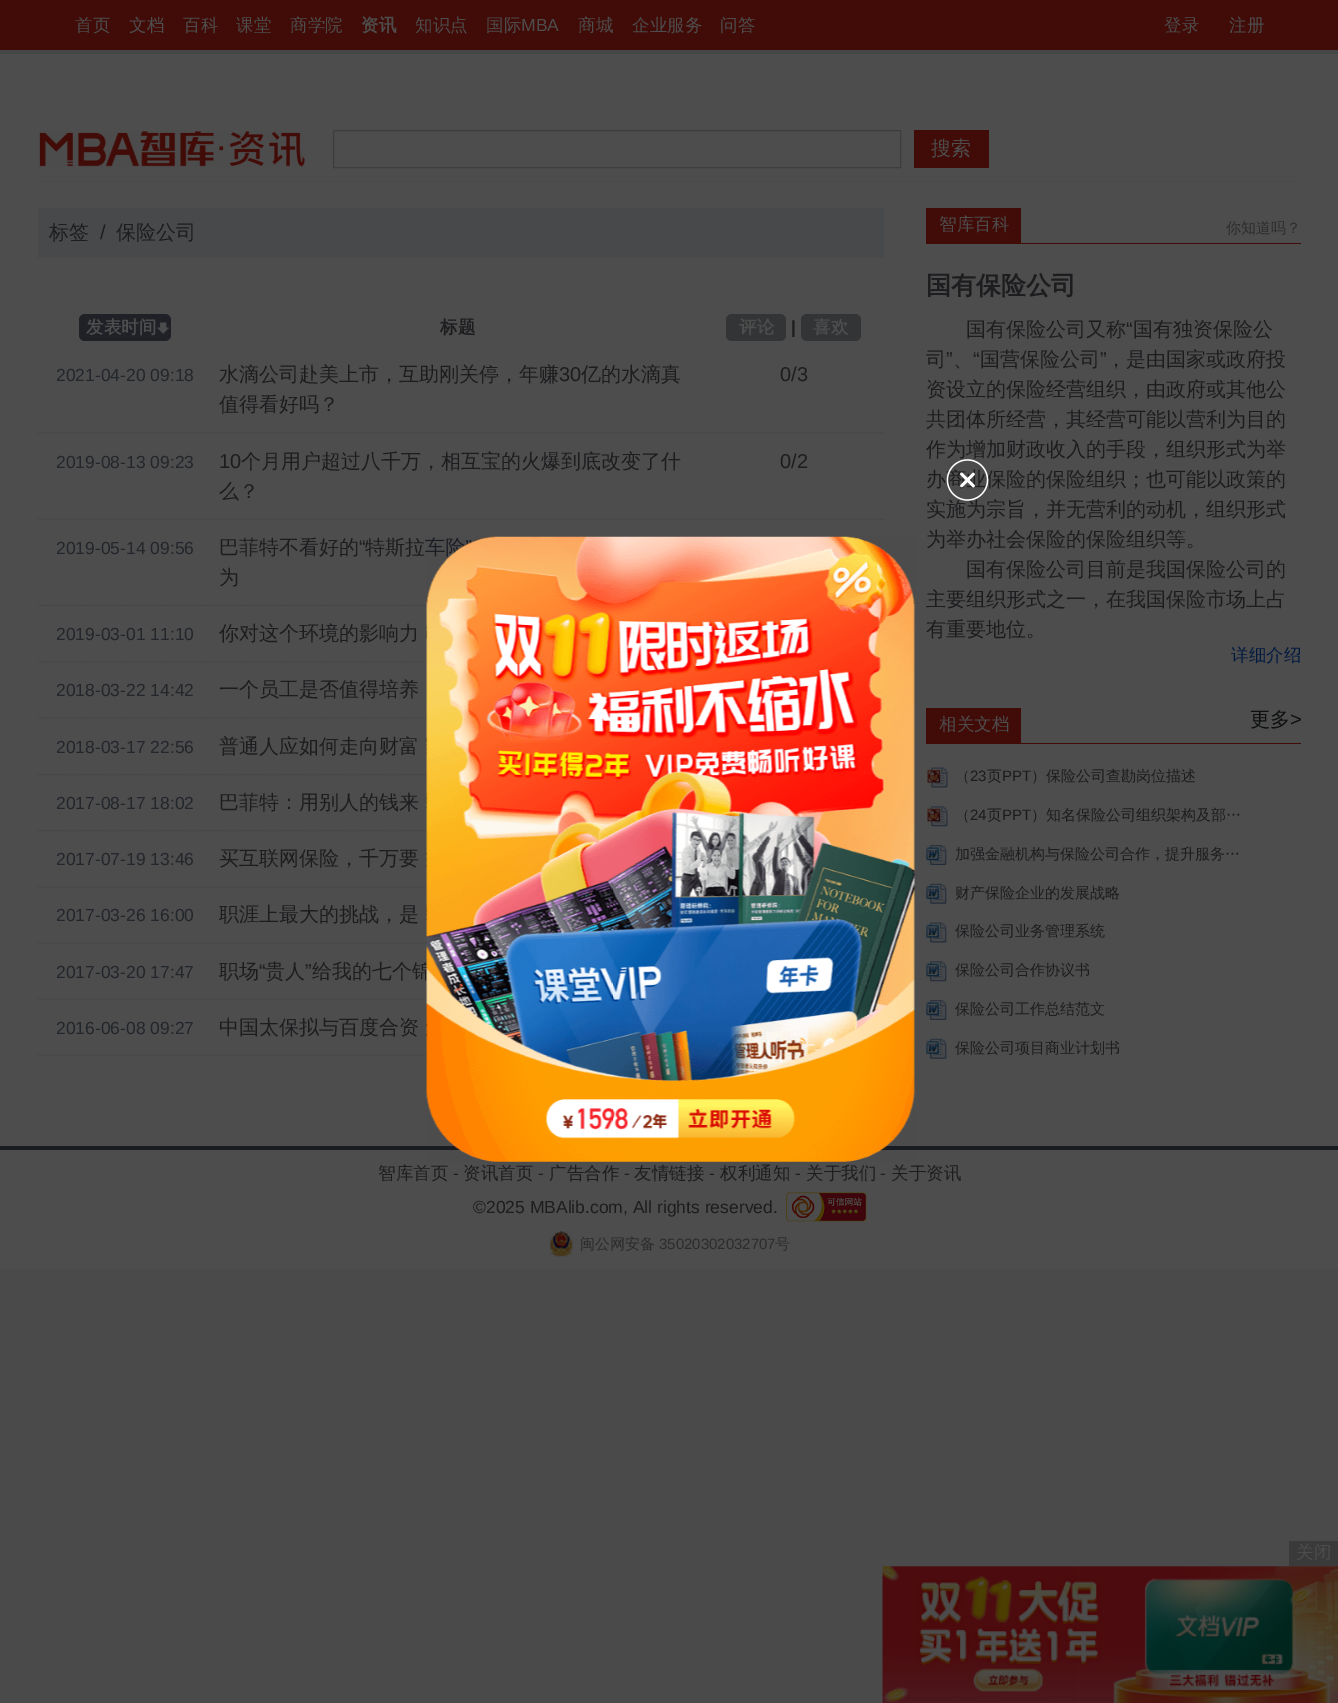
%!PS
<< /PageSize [1338 1703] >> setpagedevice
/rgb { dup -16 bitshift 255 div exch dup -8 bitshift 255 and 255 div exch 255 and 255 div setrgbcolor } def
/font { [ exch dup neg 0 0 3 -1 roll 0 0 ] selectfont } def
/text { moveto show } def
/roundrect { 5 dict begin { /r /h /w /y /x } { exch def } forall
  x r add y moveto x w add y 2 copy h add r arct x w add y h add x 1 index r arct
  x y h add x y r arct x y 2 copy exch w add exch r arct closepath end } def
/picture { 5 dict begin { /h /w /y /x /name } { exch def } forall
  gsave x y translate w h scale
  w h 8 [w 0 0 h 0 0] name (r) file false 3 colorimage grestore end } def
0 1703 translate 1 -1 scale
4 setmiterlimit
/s1 { /WenQuanYiZenHei-Medium 17.5 font 16#4D4D4D rgb } def
/s2 { /WenQuanYiZenHei-Bold 17.5 font 16#4D4D4D rgb } def
/s3 { /LiberationSans-Regular 17.5 font 16#4D4D4D rgb } def
/s4 { /WenQuanYiZenHei-Medium 20 font 16#4D4D4D rgb } def
/s5 { /WenQuanYiZenHei-Medium 20 font 16#1D1D1F rgb } def
/s6 { /LiberationSans-Regular 20 font 16#1D1D1F rgb } def
/s7 { /WenQuanYiZenHei-Bold 17.5 font 16#1D1D1F rgb } def
/s8 { /LiberationSans-Bold 17.5 font 16#1D1D1F rgb } def
/s9 { /LiberationSans-Regular 17.5 font 16#23262A rgb } def
/s10 { /WenQuanYiZenHei-Medium 15 font 16#2C2C2C rgb } def
/s11 { /WenQuanYiZenHei-Bold 25 font 16#1D1D1F rgb } def
/s12 { /WenQuanYiZenHei-Medium 17.5 font 16#001941 rgb } def
/s13 { /WenQuanYiZenHei-Medium 20 font 16#0E0F0F rgb } def
/s14 { /LiberationSans-Regular 20 font 16#0E0F0F rgb } def
/s15 { /WenQuanYiZenHei-Medium 15 font 16#1D1D1F rgb } def
/s16 { /LiberationSans-Regular 15 font 16#1D1D1F rgb } def
/s17 { /WenQuanYiZenHei-Medium 17.5 font 16#1D1D1F rgb } def
/s18 { /LiberationSans-Regular 17.5 font 16#1D1D1F rgb } def
/s19 { /LiberationSans-Regular 15 font 16#2C2C2C rgb } def
16#4A4A4B rgb
0 0 1338 1703 rectfill
16#410C08 rgb
0 0 1338 50 rectfill
s1
(首页) 75 31 text
(文档) 129 31 text
(百科) 183 31 text
(课堂) 236 31 text
(商学院) 290 31 text
s2
(资讯) 361 31 text
s1
(知识点) 415 31 text
(国际) 486 31 text
s3
(MBA) 521 31 text
s1
(商城) 578 31 text
(企业服务) 632 31 text
(问答) 720 31 text
(登录) 1164 31 text
(注册) 1229 31 text
16#454647 rgb
0 50 1338 4 rectfill
16#4D4D4D rgb
0 54 1338 1092 rectfill
16#4A4A4A rgb
38 181 1263 1 rectfill
(pic1.raw) 39 131 266 36 picture
16#3D3D3D rgb
333.5 130.5 567 37 rectstroke
16#410C08 rgb
914 130 75 38 rectfill
s4
(搜索) 931 155 text
16#48494A rgb
38 208 846 50 rectfill
s5
(标签) 49 239 text
s6
(/) 100 239 text
s5
(保险公司) 116 239 text
16#1F2127 rgb
79 314 92 27 6 roundrect fill
(pic2.raw) 157 322 12 12 picture
s2
(发表时间) 86 333 text
s7
(标题) 440 333 text
16#323436 rgb
726 314 60 27 6 roundrect fill
s2
(评论) 739 333 text
s8
(|) 791 333 text
16#323436 rgb
801 314 60 27 6 roundrect fill
s2
(喜欢) 813 333 text
16#444444 rgb
1.2 setlinewidth
[1.25 1.25] 0 setdash
37.5 433 moveto 212.5 433 lineto stroke
s9
(2021-04-20 09:18) 56 381 text
16#444444 rgb
212.5 433 moveto 702.5 433 lineto stroke
s5
(水滴公司赴美上市，互助刚关停，年赚) 219 381 text
s6
(30) 559 381 text
s5
(亿的水滴真) 581 381 text
(值得看好吗？) 219 411 text
16#444444 rgb
702.5 433 moveto 884 433 lineto stroke
s6
(0/3) 780 381 text
16#444444 rgb
37.5 519.5 moveto 212.5 519.5 lineto stroke
s9
(2019-08-13 09:23) 56 468 text
16#444444 rgb
212.5 519.5 moveto 702.5 519.5 lineto stroke
s6
(10) 219 468 text
s5
(个月用户超过八千万，相互宝的火爆到底改变了什) 241 468 text
(么？) 219 498 text
16#444444 rgb
702.5 519.5 moveto 884 519.5 lineto stroke
s6
(0/2) 780 468 text
16#444444 rgb
37.5 605.5 moveto 212.5 605.5 lineto stroke
s9
(2019-05-14 09:56) 56 554 text
16#444444 rgb
212.5 605.5 moveto 702.5 605.5 lineto stroke
s5
(巴菲特不看好的) 219 554 text
s6
(“) 359 554 text
s5
(特斯拉车险) 365 554 text
s6
(”) 465 554 text
s5
(为) 219 584 text
16#444444 rgb
37.5 662 moveto 212.5 662 lineto stroke
s9
(2019-03-01 11:10) 56 640 text
16#444444 rgb
212.5 662 moveto 702.5 662 lineto stroke
s5
(你对这个环境的影响力) 219 640 text
16#444444 rgb
37.5 718 moveto 212.5 718 lineto stroke
s9
(2018-03-22 14:42) 56 696 text
16#444444 rgb
212.5 718 moveto 702.5 718 lineto stroke
s5
(一个员工是否值得培养) 219 696 text
16#444444 rgb
37.5 774.5 moveto 212.5 774.5 lineto stroke
s9
(2018-03-17 22:56) 56 753 text
16#444444 rgb
212.5 774.5 moveto 702.5 774.5 lineto stroke
s5
(普通人应如何走向财富) 219 753 text
16#444444 rgb
37.5 830.5 moveto 212.5 830.5 lineto stroke
s9
(2017-08-17 18:02) 56 809 text
16#444444 rgb
212.5 830.5 moveto 702.5 830.5 lineto stroke
s5
(巴菲特：用别人的钱来) 219 809 text
16#444444 rgb
37.5 887 moveto 212.5 887 lineto stroke
s9
(2017-07-19 13:46) 56 865 text
16#444444 rgb
212.5 887 moveto 702.5 887 lineto stroke
s5
(买互联网保险，千万要) 219 865 text
16#444444 rgb
37.5 943 moveto 212.5 943 lineto stroke
s9
(2017-03-26 16:00) 56 921 text
16#444444 rgb
212.5 943 moveto 702.5 943 lineto stroke
s5
(职涯上最大的挑战，是) 219 921 text
16#444444 rgb
37.5 999.5 moveto 212.5 999.5 lineto stroke
s9
(2017-03-20 17:47) 56 978 text
16#444444 rgb
212.5 999.5 moveto 702.5 999.5 lineto stroke
s5
(职场) 219 978 text
s6
(“) 259 978 text
s5
(贵人) 265 978 text
s6
(”) 305 978 text
s5
(给我的七个锦) 312 978 text
16#444444 rgb
702.5 999.5 moveto 884 999.5 lineto stroke
37.5 1055.5 moveto 212.5 1055.5 lineto stroke
s9
(2016-06-08 09:27) 56 1034 text
16#444444 rgb
212.5 1055.5 moveto 702.5 1055.5 lineto stroke
s5
(中国太保拟与百度合资) 219 1034 text
16#410C08 rgb
926 243 375 1 rectfill
926 208 95 35 rectfill
s1
(智库百科) 939 230 text
s10
(你知道吗？) 1226 233 text
s11
(国有保险公司) 926 294 text
s5
(国有保险公司又称) 966 336 text
s6
(“) 1126 336 text
s5
(国有独资保险公) 1133 336 text
(司) 926 366 text
s6
(”) 946 366 text
(“) 973 366 text
s5
(国营保险公司) 980 366 text
s6
(”) 1100 366 text
s5
(，是由国家或政府投) 1106 366 text
(、) 953 366 text
(资设立的保险经营组织，由政府或其他公) 926 396 text
(共团体所经营，其经营可能以营利为目的) 926 426 text
(作为增加财政收入的手段，组织形式为举) 926 456 text
(办商业保险的保险组织；也可能以政策的) 926 486 text
(实施为宗旨，并无营利的动机，组织形式) 926 516 text
(为举办社会保险的保险组织等。) 926 546 text
(国有保险公司目前是我国保险公司的) 966 576 text
(主要组织形式之一，在我国保险市场上占) 926 606 text
(有重要地位。) 926 636 text
s12
(详细介绍) 1231 661 text
16#410C08 rgb
926 743 375 1 rectfill
926 708 95 35 rectfill
s1
(相关文档) 939 730 text
s13
(更多) 1250 726 text
s14
(>) 1290 726 text
(pic3.raw) 927 767 21 21 picture
s15
(（) 955 781 text
s16
(23) 970 781 text
s15
(页) 987 781 text
s16
(PPT) 1002 781 text
s15
(）保险公司查勘岗位描述) 1031 781 text
(pic4.raw) 927 806 21 21 picture
(（) 955 820 text
s16
(24) 970 820 text
s15
(页) 987 820 text
s16
(PPT) 1002 820 text
s15
(）知名保险公司组织架构及部…) 1031 820 text
(pic5.raw) 926 845 21 20 picture
(加强金融机构与保险公司合作，提升服务…) 955 859 text
(pic6.raw) 926 883 21 21 picture
(财产保险企业的发展战略) 955 898 text
(pic7.raw) 926 922 21 21 picture
(保险公司业务管理系统) 955 936 text
(pic8.raw) 926 961 21 21 picture
(保险公司合作协议书) 955 975 text
(pic5.raw) 926 1000 21 20 picture
(保险公司工作总结范文) 955 1014 text
(pic6.raw) 926 1038 21 21 picture
(保险公司项目商业计划书) 955 1053 text
16#4D4D4D rgb
0 1150 1338 119 rectfill
16#1A1C23 rgb
0 1146 1338 4 rectfill
s17
(智库首页) 378 1179 text
s18
(-) 453 1179 text
s17
(资讯首页) 463 1179 text
s18
(-) 538 1179 text
s17
(广告合作) 549 1179 text
s18
(-) 624 1179 text
s17
(友情链接) 634 1179 text
s18
(-) 709 1179 text
s17
(权利通知) 720 1179 text
s18
(-) 795 1179 text
s17
(关于我们) 806 1179 text
s18
(-) 880 1179 text
s17
(关于资讯) 891 1179 text
s18
(©2025 MBAlib.com, All rights reserved.) 473 1213 text
(pic9.raw) 786 1192 81 30 picture
(pic10.raw) 549 1231 24 26 picture
s10
(闽公网安备) 580 1249 text
s19
(35020302032707) 659 1249 text
s10
(号) 775 1249 text
(pic11.raw) 946 459 43 42 picture
(pic12.raw) 426 536 489 626 picture
16#3A3A3A rgb
1289 1541 49 25 rectfill
s1
(关闭) 1296 1558 text
(pic13.raw) 882 1566 456 137 picture
showpage
